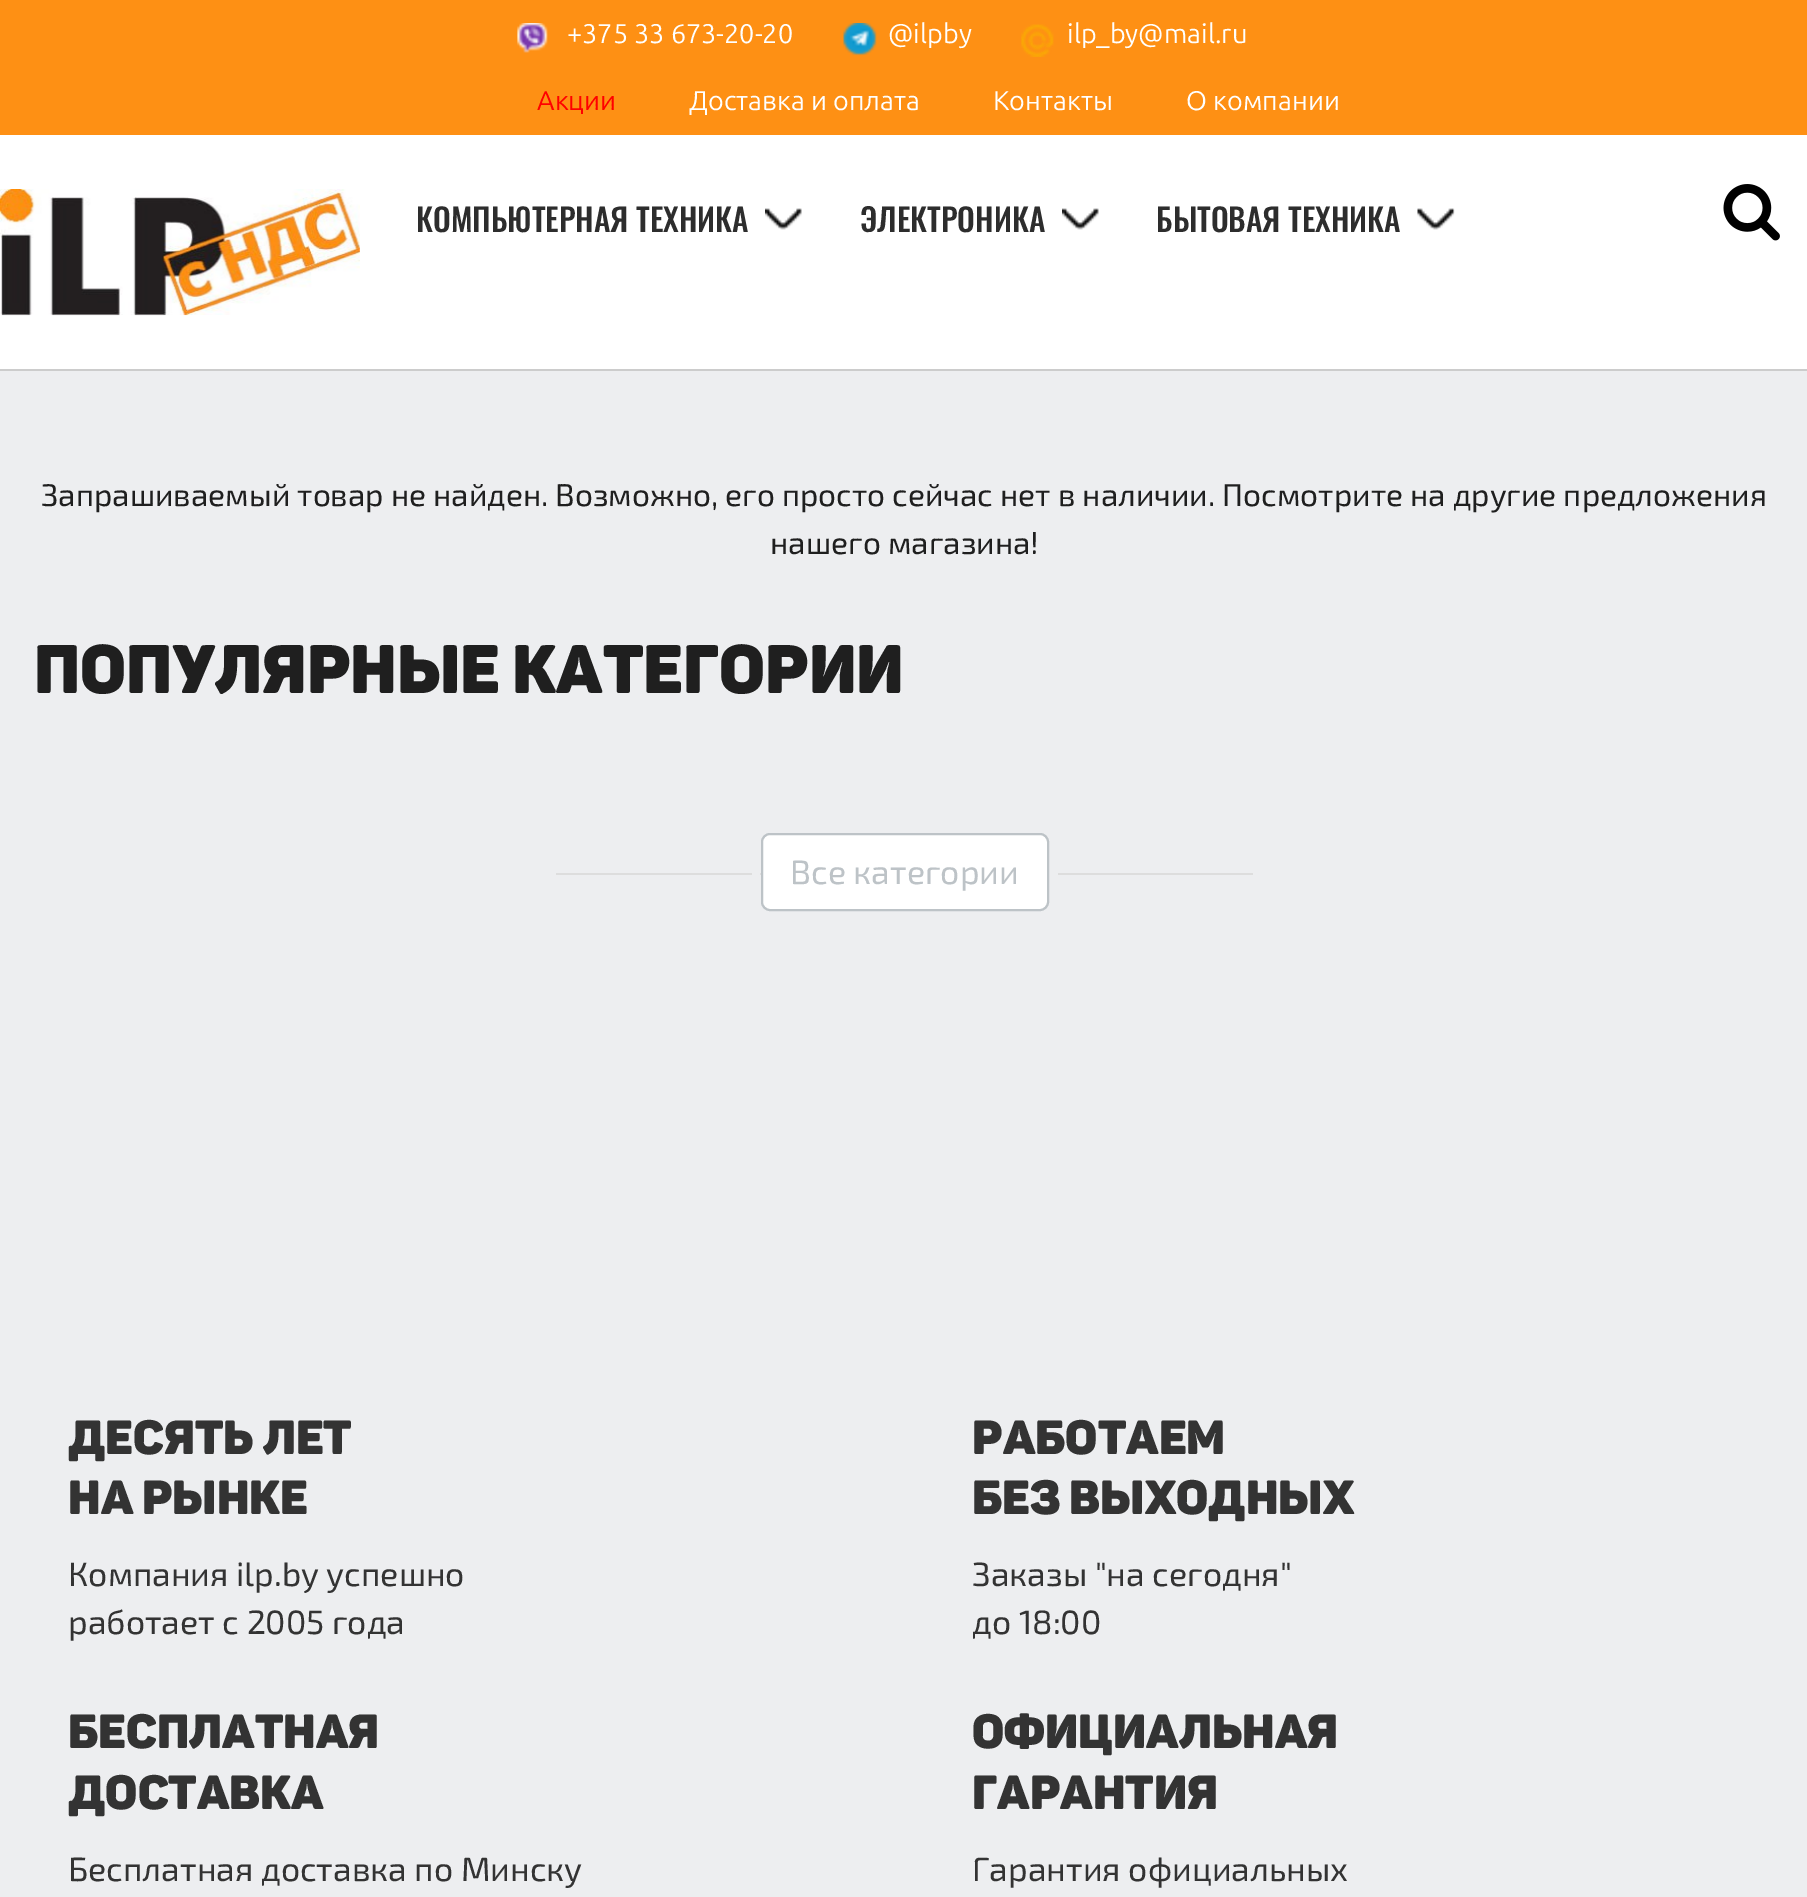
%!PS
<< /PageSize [1807 1897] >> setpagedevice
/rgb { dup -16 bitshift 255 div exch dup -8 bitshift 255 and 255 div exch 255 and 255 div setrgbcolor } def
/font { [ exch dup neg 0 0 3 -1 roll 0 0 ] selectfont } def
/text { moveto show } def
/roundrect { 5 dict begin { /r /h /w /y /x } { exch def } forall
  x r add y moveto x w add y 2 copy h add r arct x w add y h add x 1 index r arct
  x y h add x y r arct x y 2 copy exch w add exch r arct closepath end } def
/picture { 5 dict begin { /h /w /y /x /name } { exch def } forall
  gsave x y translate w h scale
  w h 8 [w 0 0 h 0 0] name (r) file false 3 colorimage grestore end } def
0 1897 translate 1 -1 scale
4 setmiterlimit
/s1 { /Ubuntu-Regular 27 font 16#FFFFFF rgb } def
/s2 { /Ubuntu-Regular 27 font 16#FF0000 rgb } def
/s3 { /Oswald-Medium 31.5 font 16#2D2D2D rgb } def
/s4 { /Exo2-Regular 31.5 font 16#1F1F1F rgb } def
/s5 { /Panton-Black 67.5 font 16#1F1F1F rgb } def
/s6 { /Exo2-Regular 33.75 font 16#BDC3C7 rgb } def
/s7 { /Panton-Black 47.25 font 16#333333 rgb } def
/s8 { /Exo2-Regular 33.75 font 16#333333 rgb } def
16#EDEEF0 rgb
0 0 1807 1897 rectfill
16#FFFFFF rgb
0 135 1807 234 rectfill
16#CCCCCC rgb
0 369 1807 2 rectfill
16#FE9014 rgb
0 0 1807 135 rectfill
(pic1.raw) 517 23 31 30 picture
s1
(+375 33 673-20-20) 567 43 text
(pic2.raw) 843 23 34 33 picture
(@ilpby) 888 43 text
(pic3.raw) 1021 24 33 33 picture
(ilp_by@mail.ru) 1067 43 text
s2
(Акции) 537 110 text
s1
(Доставка и оплата) 689 110 text
(Контакты) 993 110 text
(О компании) 1186 110 text
(pic4.raw) 0 189 360 127 picture
s3
(КОМПЬЮТЕРНАЯ ТЕХНИКА) 416 232 text
(pic5.raw) 765 208 37 22 picture
(ЭЛЕКТРОНИКА) 860 232 text
(pic5.raw) 1062 208 37 22 picture
(БЫТОВАЯ ТЕХНИКА) 1156 232 text
(pic6.raw) 1417 208 38 22 picture
(pic7.raw) 1723 184 57 57 picture
s4
(Запрашиваемый товар не найден. Возможно, его просто сейчас нет в наличии. Посмотрите на другие предложения) 41 506 text
(нашего магазина!) 770 554 text
s5
(Популярные категории) 34 693 text
16#DDDDDD rgb
556 873 697 2 rectfill
16#EDEEF0 rgb
1042 911 moveto 1058 911 1058 909 1058 892 curveto 1058 852 lineto 1058 836 1059 833 1042 833 curveto 1046 834 1048 838 1048 842 curveto 1048 902 lineto 1048 906 1046 910 1042 911 curveto closepath fill
761 833 moveto 756 833 752 837 752 842 curveto 752 902 lineto 752 907 756 911 761 911 curveto 767 911 lineto 763 910 760 906 760 902 curveto 760 842 lineto 760 838 763 834 767 833 curveto closepath fill
16#FFFFFF rgb
762 834 286 76 8 roundrect gsave fill grestore
16#BDC3C7 rgb
2 setlinewidth
stroke
s6
(Все категории) 790 884 text
s7
(ДЕСЯТЬ ЛЕТ) 68 1454 text
(НА РЫНКЕ) 68 1514 text
s8
(Компания ilp.by успешно) 68 1586 text
(работает с 2005 года) 68 1634 text
s7
(РАБОТАЕМ) 972 1454 text
(БЕЗ ВЫХОДНЫХ) 972 1514 text
s8
(Заказы "на сегодня") 972 1586 text
(до 18:00) 972 1634 text
s7
(БЕСПЛАТНАЯ) 68 1748 text
(ДОСТАВКА) 68 1809 text
s8
(Бесплатная доставка по Минску) 68 1881 text
s7
(ОФИЦИAЛЬНАЯ) 972 1748 text
(ГАРАНТИЯ) 972 1809 text
s8
(Гарантия официальных) 972 1881 text
showpage
